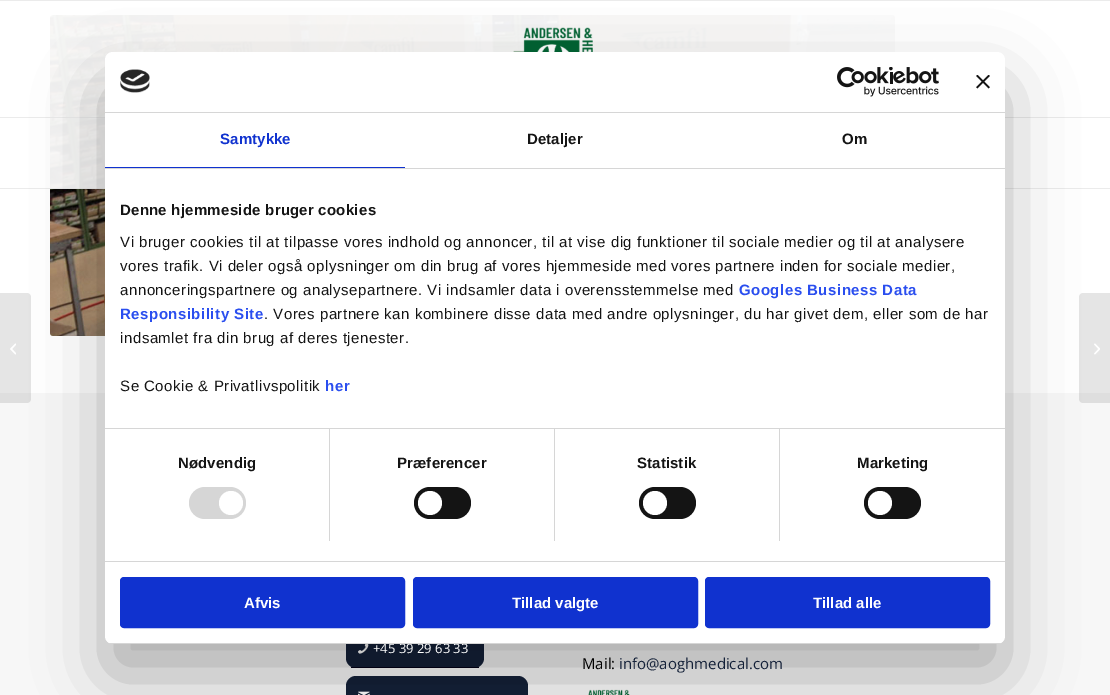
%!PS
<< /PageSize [1110 695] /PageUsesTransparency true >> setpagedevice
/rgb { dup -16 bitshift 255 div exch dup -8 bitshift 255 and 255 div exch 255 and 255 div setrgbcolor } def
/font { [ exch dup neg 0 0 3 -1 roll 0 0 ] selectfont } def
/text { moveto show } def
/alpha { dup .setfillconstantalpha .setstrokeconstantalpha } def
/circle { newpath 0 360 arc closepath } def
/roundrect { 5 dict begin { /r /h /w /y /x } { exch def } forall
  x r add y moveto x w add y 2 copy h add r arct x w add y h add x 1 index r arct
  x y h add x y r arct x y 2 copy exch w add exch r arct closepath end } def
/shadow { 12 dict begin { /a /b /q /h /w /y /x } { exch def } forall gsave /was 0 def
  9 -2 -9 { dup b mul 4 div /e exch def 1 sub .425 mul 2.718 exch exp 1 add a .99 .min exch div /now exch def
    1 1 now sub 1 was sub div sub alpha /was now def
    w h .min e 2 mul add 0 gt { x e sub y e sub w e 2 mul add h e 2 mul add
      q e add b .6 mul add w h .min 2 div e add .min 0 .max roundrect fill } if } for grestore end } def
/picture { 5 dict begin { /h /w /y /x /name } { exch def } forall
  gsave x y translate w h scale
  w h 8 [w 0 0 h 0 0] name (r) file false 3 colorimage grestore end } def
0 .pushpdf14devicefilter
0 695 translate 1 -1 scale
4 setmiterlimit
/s1 { /OpenSans-Regular 13 font 16#FFFFFF rgb } def
/s2 { /LiberationSans-Bold 15 font 16#FFFFFF rgb } def
/s3 { /OpenSans-Regular 15 font 16#000000 rgb } def
/s4 { /OpenSans-Regular 15 font 16#132038 rgb } def
16#FFFFFF rgb
0 0 1110 695 rectfill
16#EBEBEB rgb
0 0 1110 1 rectfill
(pic7.raw) 50 15 845 321 picture
0 188 1110 1 rectfill
0.95 alpha
16#FFFFFF rgb
50 15 845 173 rectfill
1 alpha
(pic4.raw) 513 27 80 25 picture
16#EBEBEB rgb
0 117 1110 1 rectfill
16#F7F7F7 rgb
0 393 1110 302 rectfill
0.1 alpha
16#000000 rgb
0 293 moveto 27 293 lineto 29 293 31 295 31 297 curveto 31 399 lineto 31 401 29 403 27 403 curveto 0 403 lineto closepath fill
1 alpha
(pic5.raw) 10 343 6 12 picture
0.1 alpha
1083 293 moveto 1110 293 lineto 1110 403 lineto 1083 403 lineto 1081 403 1079 401 1079 399 curveto 1079 297 lineto 1079 295 1081 293 1083 293 curveto closepath fill
1 alpha
(pic6.raw) 1094 343 6 12 picture
16#132038 rgb
346 629 138 39 10 roundrect fill
16#010016 rgb
351 667 128 1 rectfill
(pic8.raw) 358 644 11 10 picture
16#132038 rgb
346 676 182 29 10 roundrect fill
(pic9.raw) 358 691 12 4 picture
(pic10.raw) 588 689 42 6 picture
16#000000 rgb
105 84 900 592 8 34 0.3 shadow
16#FFFFFF rgb
105 52 900 592 8 roundrect fill
16#D6D6D6 rgb
105 112 900 1 rectfill
(pic1.raw) 120 69 30 24 picture
(pic2.raw) 837 67 102 30 picture
(pic3.raw) 976 75 14 14 picture
105 168 900 1 rectfill
16#1032CF rgb
105 167 300 1 rectfill
/LiberationSans-Bold 15 font
220 144 moveto 0.1 0 (Samtykke) ashow
16#141414 rgb
527 144 moveto 0.1 0 (Detaljer) ashow
842 144 moveto 0.1 0 (Om) ashow
16#D6D6D6 rgb
105 428 900 1 rectfill
16#141414 rgb
120 215 moveto 0.25 0 (Denne hjemmeside bruger cookies) ashow
/LiberationSans-Regular 15 font
120 247 moveto 0.5 0 (Vi bruger cookies til at tilpasse vores indhold og annoncer, til at vise dig funktioner til sociale medier og til at analysere) ashow
120 271 moveto 0.5 0 (vores trafik. Vi deler også oplysninger om din brug af vores hjemmeside med vores partnere inden for sociale medier,) ashow
120 295 moveto 0.5 0 (annonceringspartnere og analysepartnere. Vi indsamler data i overensstemmelse med) ashow
/LiberationSans-Bold 15 font
16#2A4EEF rgb
739 295 moveto 0.5 0 (Googles Business Data) ashow
120 319 moveto 0.5 0 (Responsibility Site) ashow
/LiberationSans-Regular 15 font
16#141414 rgb
264 319 moveto 0.5 0 (. Vores partnere kan kombinere disse data med andre oplysninger, du har givet dem, eller som de har) ashow
120 343 moveto 0.5 0 (indsamlet fra din brug af deres tjenester.) ashow
120 391 moveto 0.5 0 (Se Cookie & Privatlivspolitik) ashow
/LiberationSans-Bold 15 font
16#2A4EEF rgb
325 391 moveto 0.5 0 (her) ashow
16#D6D6D6 rgb
105 561 900 1 rectfill
329 429 1 112 rectfill
16#141414 rgb
178 468 moveto 0.1 0 (Nødvendig) ashow
16#D6D6D6 rgb
189 487 57 32 16 roundrect fill
16#FFFFFF rgb
231 503 12 circle fill
16#D6D6D6 rgb
554 429 1 112 rectfill
16#141414 rgb
397 468 moveto 0.1 0 (Præferencer) ashow
414 487 57 32 16 roundrect fill
16#FFFFFF rgb
430 503 12 circle fill
16#D6D6D6 rgb
779 429 1 112 rectfill
16#141414 rgb
637 468 moveto 0.1 0 (Statistik) ashow
639 487 57 32 16 roundrect fill
16#FFFFFF rgb
655 503 12 circle fill
16#141414 rgb
857 468 moveto 0.1 0 (Marketing) ashow
864 487 57 32 16 roundrect fill
16#FFFFFF rgb
880 503 12 circle fill
s1
(+45 39 29 63 33) 373 653 text
gsave
105 52 900 592 8 roundrect clip newpath
16#D6D6D6 rgb
105 643 900 1 rectfill
grestore
16#1032CF rgb
121 578 283 49 3 roundrect gsave fill grestore
2 setlinewidth
stroke
s2
(Afvis) 244 608 text
16#1032CF rgb
414 578 283 49 3 roundrect gsave fill grestore
stroke
s2
(Tillad valgte) 512 608 text
16#1032CF rgb
706 578 283 49 3 roundrect gsave fill grestore
stroke
s2
(Tillad alle) 813 608 text
s3
(Mail:) 582 669 text
s4
(info@aoghmedical.com) 619 669 text
.poppdf14devicefilter showpage
